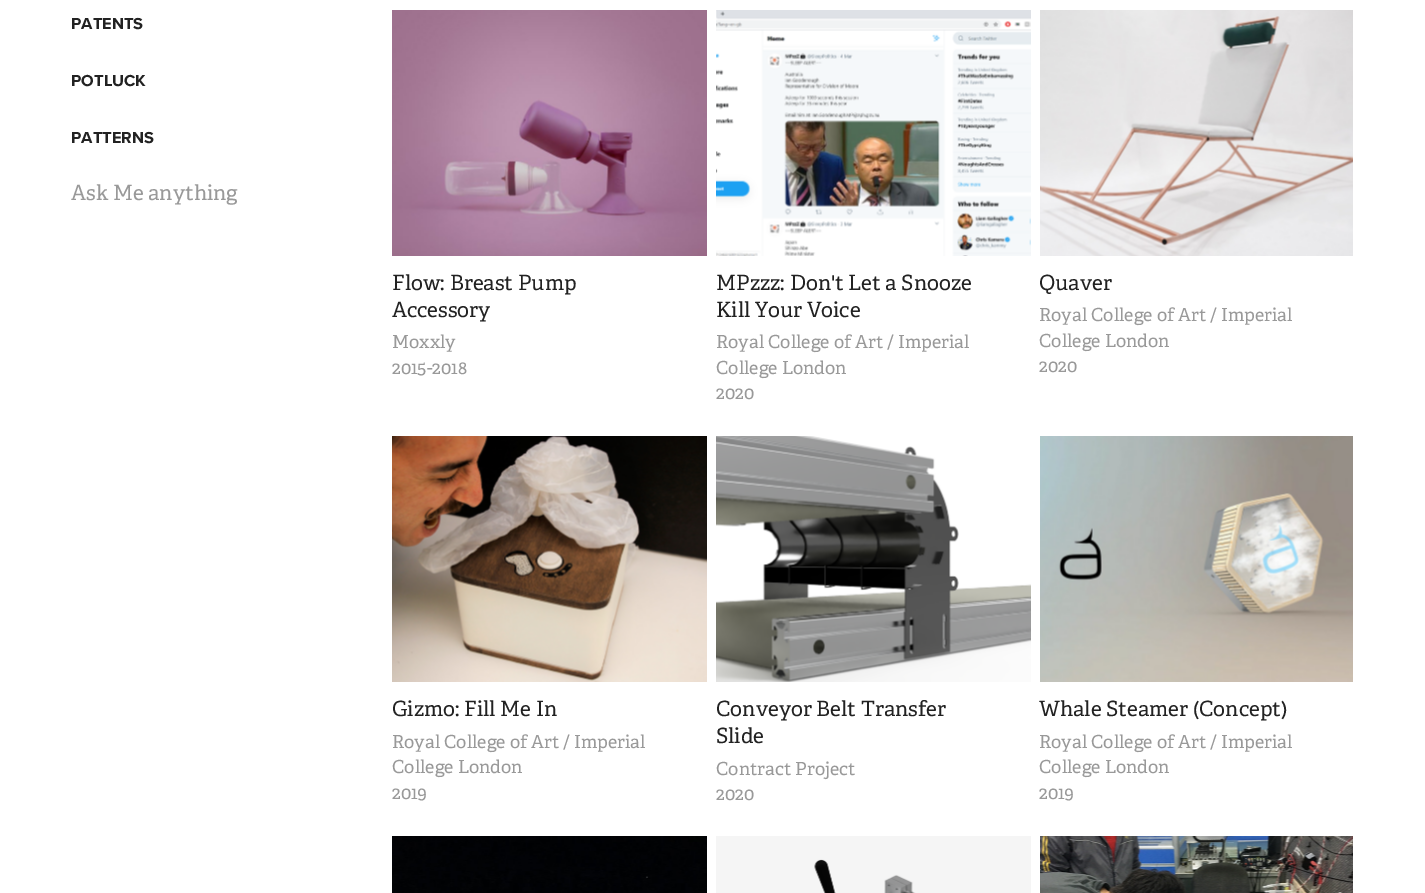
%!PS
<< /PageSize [1425 893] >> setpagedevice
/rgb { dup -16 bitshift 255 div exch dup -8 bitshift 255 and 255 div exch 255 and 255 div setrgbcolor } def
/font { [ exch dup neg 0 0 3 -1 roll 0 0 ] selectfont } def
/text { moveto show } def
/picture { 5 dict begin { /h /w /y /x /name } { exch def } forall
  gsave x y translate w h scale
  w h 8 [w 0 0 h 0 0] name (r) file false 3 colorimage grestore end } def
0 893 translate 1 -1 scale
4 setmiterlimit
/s1 { /ProximaNova-Bold 16.5 font 16#222222 rgb } def
/s2 { /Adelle-Regular 21 font 16#999999 rgb } def
/s3 { /Adelle-Regular 21 font 16#222222 rgb } def
/s4 { /Adelle-Regular 18 font 16#999999 rgb } def
16#FFFFFF rgb
0 0 1425 893 rectfill
s1
(PATENTS) 71 29 text
(POTLUCK) 71 86 text
(PATTERNS) 71 143 text
s2
(Ask Me anything) 71 200 text
(pic1.raw) 392 10 315 246 picture
s3
(Flow: Breast Pump) 392 290 text
(Accessory) 392 317 text
s4
(Moxxly) 392 348 text
(2015-2018) 392 374 text
(pic2.raw) 716 10 315 246 picture
s3
(MPzzz: Don't Let a Snooze) 716 290 text
(Kill Your Voice) 716 317 text
s4
(Royal College of Art / Imperial) 716 348 text
(College London) 716 374 text
(2020) 716 399 text
(pic3.raw) 1040 10 313 246 picture
s3
(Quaver) 1039 290 text
s4
(Royal College of Art / Imperial) 1039 321 text
(College London) 1039 347 text
(2020) 1039 372 text
(pic4.raw) 392 436 315 246 picture
s3
(Gizmo: Fill Me In) 392 716 text
s4
(Royal College of Art / Imperial) 392 748 text
(College London) 392 773 text
(2019) 392 799 text
(pic5.raw) 716 436 315 246 picture
s3
(Conveyor Belt Transfer) 716 716 text
(Slide) 716 743 text
s4
(Contract Project) 716 775 text
(2020) 716 800 text
(pic6.raw) 1040 436 313 246 picture
s3
(Whale Steamer \(Concept\)) 1039 716 text
s4
(Royal College of Art / Imperial) 1039 748 text
(College London) 1039 773 text
(2019) 1039 799 text
(pic7.raw) 392 836 315 57 picture
(pic8.raw) 716 836 315 57 picture
(pic9.raw) 1040 836 313 57 picture
showpage
